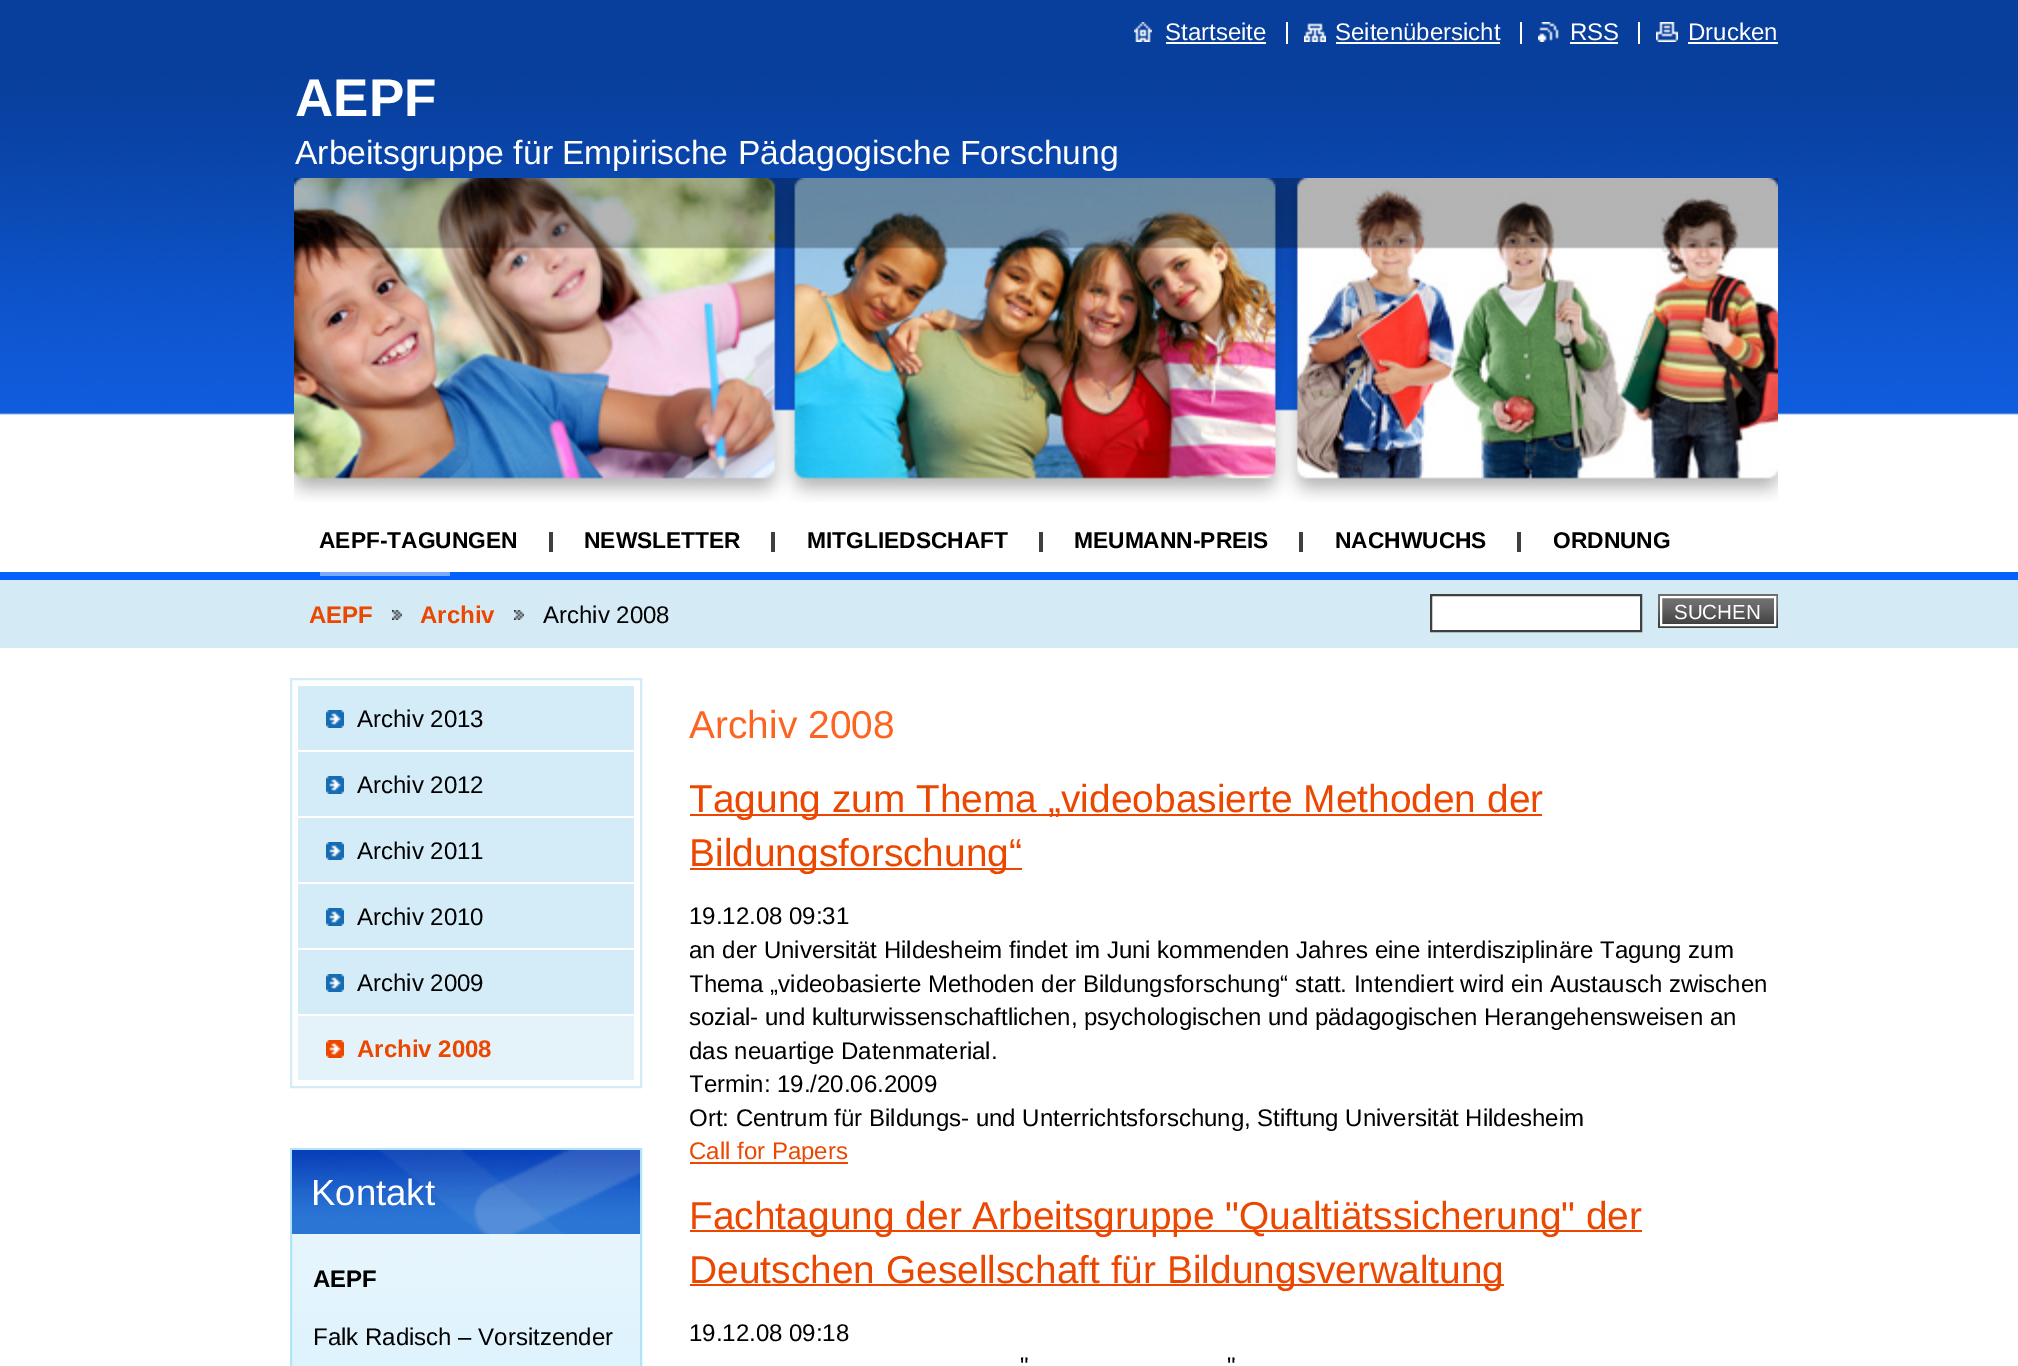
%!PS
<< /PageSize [2018 1366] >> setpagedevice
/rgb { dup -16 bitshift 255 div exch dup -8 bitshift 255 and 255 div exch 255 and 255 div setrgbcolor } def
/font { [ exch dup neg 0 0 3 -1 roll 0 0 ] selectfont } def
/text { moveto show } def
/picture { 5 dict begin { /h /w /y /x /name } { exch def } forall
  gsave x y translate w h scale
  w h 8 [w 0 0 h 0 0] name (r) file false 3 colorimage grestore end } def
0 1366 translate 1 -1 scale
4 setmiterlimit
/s1 { /LiberationSans-Regular 24 font 16#FFFFFF rgb } def
/s2 { /LiberationSans-Bold 53 font 16#FFFFFF rgb } def
/s3 { /LiberationSans-Regular 33.6 font 16#FFFFFF rgb } def
/s4 { /LiberationSans-Bold 22.75 font 16#000000 rgb } def
/s5 { /LiberationSans-Bold 24 font 16#EC4700 rgb } def
/s6 { /LiberationSans-Regular 24 font 16#000000 rgb } def
/s7 { /LiberationSans-Regular 20.5 font 16#FFFFFF rgb } def
/s8 { /LiberationSans-Regular 36.5 font 16#FFFFFF rgb } def
/s9 { /LiberationSans-Bold 24 font 16#000000 rgb } def
/s10 { /LiberationSans-Regular 38.9 font 16#FD6422 rgb } def
/s11 { /LiberationSans-Regular 38.9 font 16#EC4700 rgb } def
/s12 { /LiberationSans-Regular 24 font 16#EC4700 rgb } def
16#FFFFFF rgb
0 0 2018 1366 rectfill
16#083F9C rgb
0 0 2018 68 rectfill
(pic1.raw) 1134 22 18 20 picture
s1
(Startseite) 1165 40 text
1166 42 100 2 rectfill
(pic2.raw) 1304 23 22 19 picture
(Seitenübersicht) 1335 40 text
1286 22 2 22 rectfill
1336 42 164 2 rectfill
(pic3.raw) 1538 22 21 20 picture
(RSS) 1570 40 text
1520 22 2 22 rectfill
1570 42 48 2 rectfill
(pic4.raw) 1656 22 22 20 picture
(Drucken) 1688 40 text
1638 22 2 22 rectfill
1688 42 90 2 rectfill
(pic5.raw) 0 68 2018 347 picture
s2
(AEPF) 295 116 text
s3
(Arbeitsgruppe für Empirische Pädagogische Forschung) 295 164 text
(pic6.raw) 294 178 1484 324 picture
s4
(AEPF-TAGUNGEN) 319 548 text
16#3F3F3F rgb
549 532 4 20 rectfill
s4
(NEWSLETTER) 584 548 text
16#3F3F3F rgb
771 532 4 20 rectfill
s4
(MITGLIEDSCHAFT) 807 548 text
16#3F3F3F rgb
1039 532 4 20 rectfill
s4
(MEUMANN-PREIS) 1074 548 text
16#3F3F3F rgb
1299 532 4 20 rectfill
s4
(NACHWUCHS) 1335 548 text
16#3F3F3F rgb
1517 532 4 20 rectfill
s4
(ORDNUNG) 1553 548 text
16#0461FD rgb
0 572 2018 8 rectfill
16#77A9FD rgb
320 572 130 4 rectfill
16#D4EAF5 rgb
0 580 2018 68 rectfill
s5
(AEPF) 309 623 text
(pic7.raw) 392 610 10 10 picture
(Archiv) 420 623 text
(pic7.raw) 514 610 10 10 picture
s6
(Archiv 2008) 543 623 text
16#FFFFFF rgb
1431 595 moveto 1641 595 lineto 1641 631 lineto 1431 631 lineto closepath gsave fill grestore
16#404040 rgb
2 setlinewidth
stroke
1658 623 120 5 rectfill
(pic8.raw) 1658 594 120 29 picture
(pic9.raw) 1662 598 112 25 picture
16#FFFFFF rgb
1661 597 114 28 rectstroke
s7
(SUCHEN) 1674 619 text
16#D3ECF8 rgb
291 679 350 408 rectstroke
298 686 336 64 rectfill
(pic10.raw) 326 710 18 18 picture
s6
(Archiv 2013) 357 727 text
16#D3ECF8 rgb
298 752 336 64 rectfill
(pic10.raw) 326 776 18 18 picture
s6
(Archiv 2012) 357 793 text
16#D3ECF8 rgb
298 818 336 64 rectfill
(pic10.raw) 326 842 18 18 picture
s6
(Archiv 2011) 357 859 text
16#D3ECF8 rgb
298 884 336 64 rectfill
(pic10.raw) 326 908 18 18 picture
s6
(Archiv 2010) 357 925 text
16#D3ECF8 rgb
298 950 336 64 rectfill
(pic10.raw) 326 974 18 18 picture
s6
(Archiv 2009) 357 991 text
16#E4F3FA rgb
298 1016 336 64 rectfill
(pic11.raw) 326 1040 18 18 picture
s5
(Archiv 2008) 357 1057 text
(pic12.raw) 292 1234 348 132 picture
16#B1E4FB rgb
291 1149 350 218 rectstroke
(pic13.raw) 292 1150 348 84 picture
s8
(Kontakt) 311 1205 text
s9
(AEPF) 313 1287 text
s6
(Falk Radisch – Vorsitzender) 313 1345 text
s10
(Archiv 2008) 689 738 text
16#EC4700 rgb
690 814 852 2 rectfill
gsave
690 772 1088 108 rectclip
(Tagung zum Thema) 689 812 text
grestore
(„videobasierte Methoden der) 1048 812 text
690 868 332 2 rectfill
(Bildungsforschung“) 689 866 text
s6
(19.12.08 09:31) 689 924 text
(an der Universität Hildesheim findet im Juni kommenden Jahres eine interdisziplinäre Tagung zum) 689 958 text
gsave
690 678 1088 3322 rectclip
(Thema „videobasierte Methoden der Bildungsforschung“) 689 992 text
grestore
(statt. Intendiert wird ein Austausch zwischen) 1295 992 text
(sozial- und kulturwissenschaftlichen, psychologischen und pädagogischen Herangehensweisen an) 689 1025 text
(das neuartige Datenmaterial.) 689 1059 text
gsave
690 678 1088 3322 rectclip
(Termin: 19./20.06.2009) 689 1092 text
grestore
(Ort: Centrum für Bildungs‐ und Unterrichtsforschung, Stiftung Universität Hildesheim) 689 1126 text
16#EC4700 rgb
690 1162 158 2 rectfill
(Call for Papers) 689 1159 text
690 1230 952 2 rectfill
s11
(Fachtagung der Arbeitsgruppe "Qualtiätssicherung" der) 689 1229 text
690 1284 814 2 rectfill
(Deutschen Gesellschaft für Bildungsverwaltung) 689 1283 text
s6
(19.12.08 09:18) 689 1341 text
(") 1020 1374 text
(") 1227 1374 text
showpage
